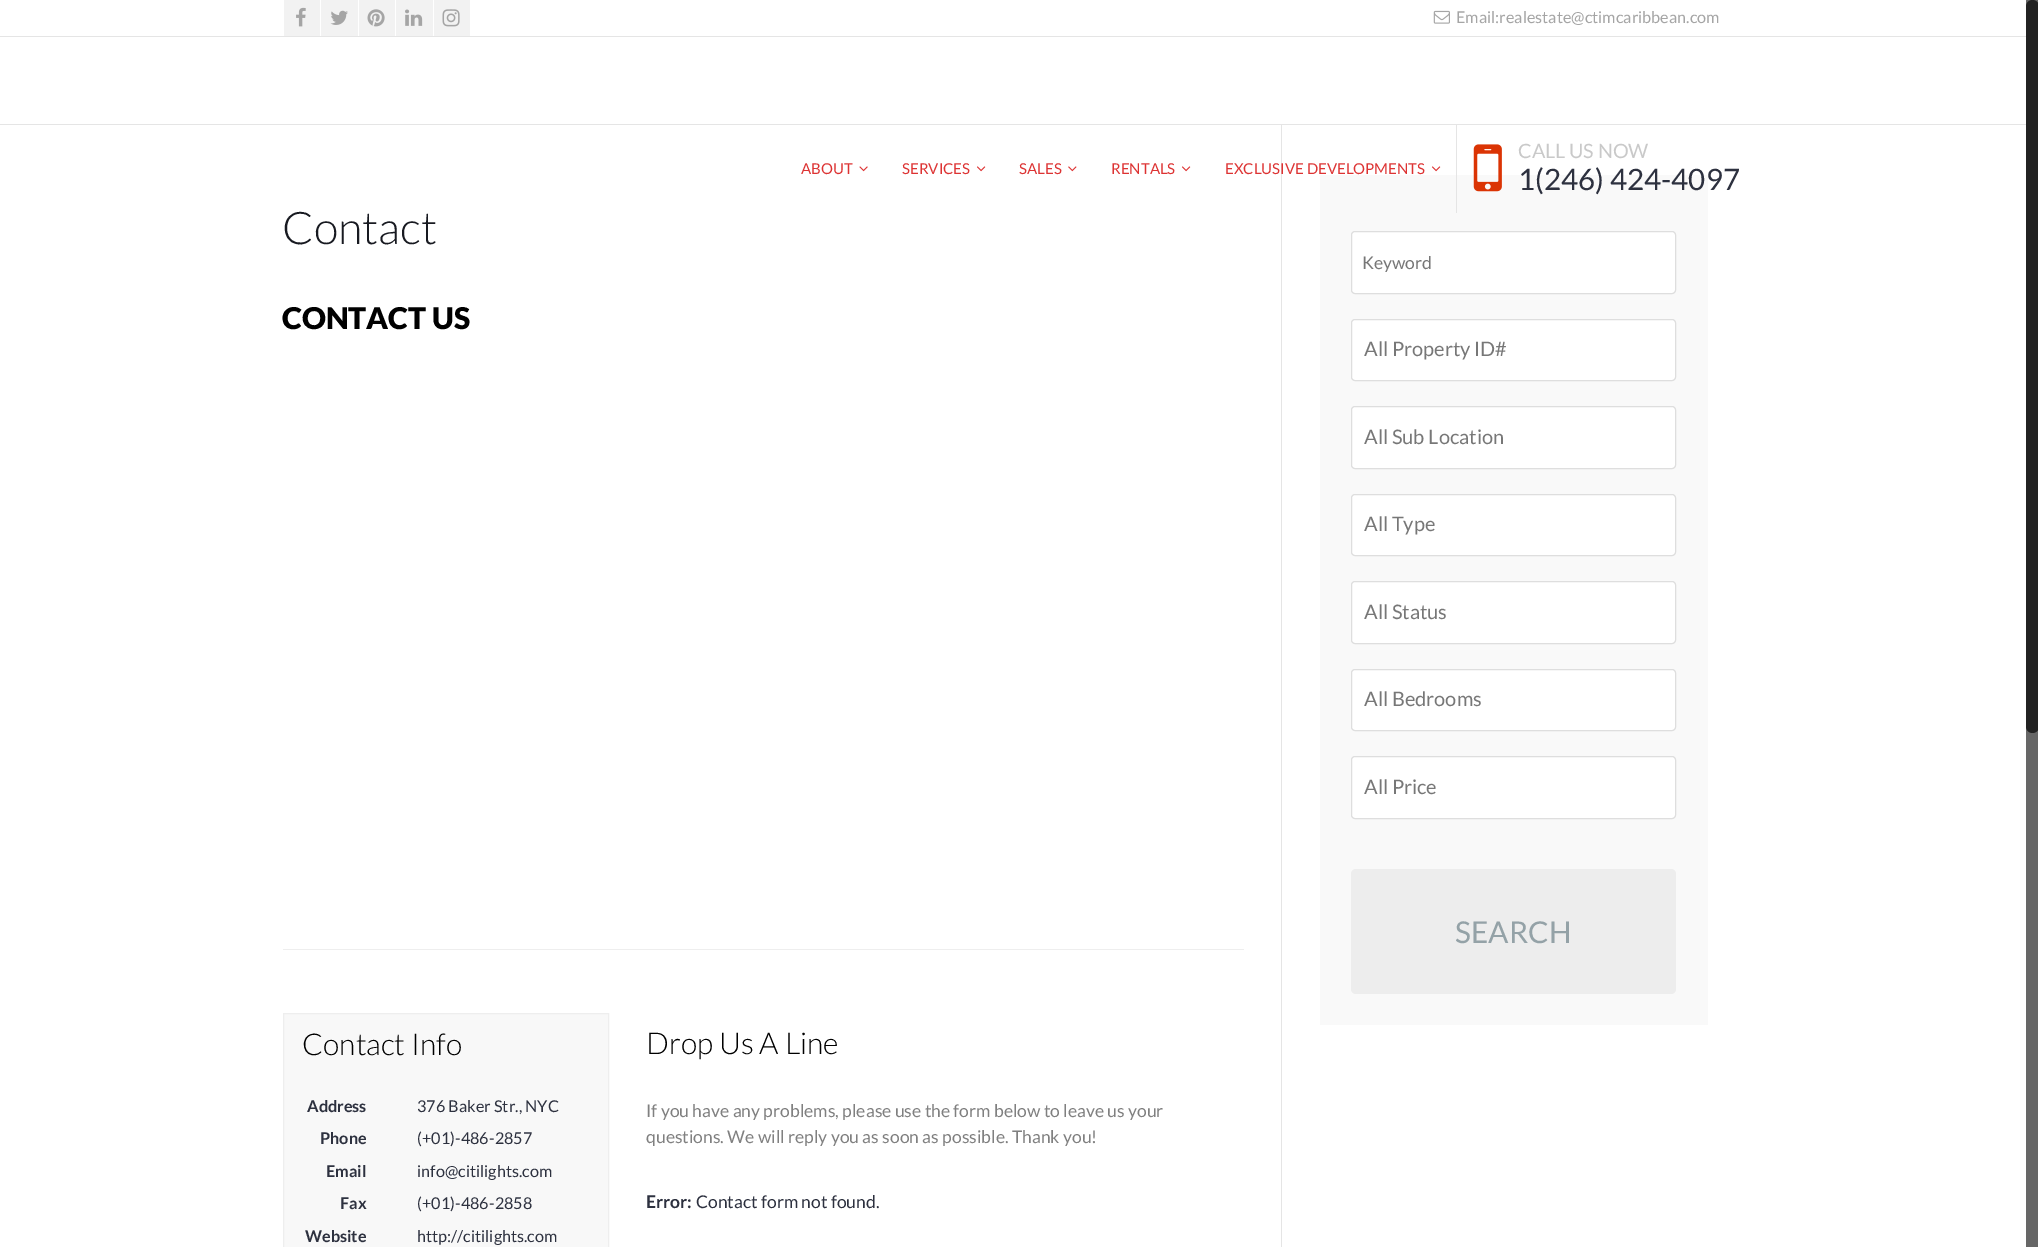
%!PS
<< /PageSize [2038 1247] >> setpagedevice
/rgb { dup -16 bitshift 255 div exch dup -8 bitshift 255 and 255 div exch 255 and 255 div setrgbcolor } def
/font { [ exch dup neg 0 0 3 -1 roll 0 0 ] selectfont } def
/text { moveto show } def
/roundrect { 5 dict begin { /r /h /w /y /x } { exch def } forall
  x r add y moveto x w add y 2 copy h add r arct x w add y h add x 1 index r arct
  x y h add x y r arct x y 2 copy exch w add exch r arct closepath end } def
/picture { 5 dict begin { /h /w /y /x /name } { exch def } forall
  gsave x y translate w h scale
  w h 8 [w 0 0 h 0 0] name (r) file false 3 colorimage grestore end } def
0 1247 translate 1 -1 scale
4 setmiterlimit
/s1 { /Lato-Regular 16.25 font 16#A5A5A5 rgb } def
/s2 { /Lato-Regular 15 font 16#DD3333 rgb } def
/s3 { /Lato-Regular 19.75 font 16#C9C9C9 rgb } def
/s4 { /Lato-Regular 29.5 font 16#2D313F rgb } def
/s5 { /Lato-Light 45 font 16#181A21 rgb } def
/s6 { /Lato-Black 30 font 16#000000 rgb } def
/s7 { /Lato-Light 30 font 16#000000 rgb } def
/s8 { /Lato-Bold 16.25 font 16#2D313F rgb } def
/s9 { /Lato-Regular 16.25 font 16#2D313F rgb } def
/s10 { /Lato-Regular 17.5 font 16#808080 rgb } def
/s11 { /Lato-Bold 17.5 font 16#2D313F rgb } def
/s12 { /Lato-Regular 17.5 font 16#2D313F rgb } def
/s13 { /Lato-Regular 17.5 font 16#777777 rgb } def
/s14 { /Lato-Regular 20 font 16#777777 rgb } def
/s15 { /Lato-Regular 30 font 16#94A2A7 rgb } def
16#FFFFFF rgb
0 0 2038 1247 rectfill
16#E5E5E5 rgb
0 36 2026 1 rectfill
16#F2F2F2 rgb
284 0 36 36 rectfill
(pic1.raw) 296 7 10 20 picture
321 0 37 36 rectfill
(pic2.raw) 330 10 18 15 picture
359 0 36 36 rectfill
(pic3.raw) 367 9 18 18 picture
396 0 37 36 rectfill
(pic4.raw) 405 9 18 17 picture
434 0 36 36 rectfill
(pic5.raw) 442 9 18 18 picture
(pic6.raw) 1433 10 17 14 picture
s1
(Email:realestate@ctimcaribbean.com) 1456 23 text
16#E5E5E5 rgb
0 124 2026 1 rectfill
s2
(ABOUT) 801 174 text
(pic7.raw) 859 166 9 6 picture
(SERVICES) 902 174 text
(pic8.raw) 977 166 9 6 picture
(SALES) 1019 174 text
(pic9.raw) 1068 166 9 6 picture
(RENTALS) 1111 174 text
(pic8.raw) 1182 166 9 6 picture
16#E5E5E5 rgb
1281 125 1 1122 rectfill
s2
(EXCLUSIVE DEVELOPMENTS) 1225 174 text
(pic8.raw) 1432 166 9 6 picture
16#F9F9F9 rgb
1320 175 388 850 rectfill
16#E5E5E5 rgb
1456 125 1 88 rectfill
(pic10.raw) 1473 144 29 48 picture
s3
(CALL US NOW) 1518 158 text
s4
(1\(246\) 424-4097) 1518 190 text
s5
(Contact) 282 244 text
s6
(CONTACT US) 282 329 text
16#EEEEEE rgb
283 949 961 1 rectfill
16#F8F8F8 rgb
283.5 1013.5 moveto 608.5 1013.5 lineto 608.5 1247.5 lineto 283.5 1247.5 lineto closepath gsave fill grestore
16#EEEEEE rgb
stroke
s7
(Contact Info) 302 1055 text
s8
(Address) 307 1112 text
s9
(376 Baker Str., NYC) 417 1112 text
s8
(Phone) 320 1144 text
s9
(\(+01\)-486-2857) 417 1144 text
s8
(Email) 326 1177 text
s9
(info@citilights.com) 417 1177 text
s8
(Fax) 340 1209 text
s9
(\(+01\)-486-2858) 417 1209 text
s8
(Website) 305 1242 text
s9
(http://citilights.com) 417 1242 text
s7
(Drop Us A Line) 646 1054 text
s10
(If you have any problems, please use the form below to leave us your) 646 1117 text
(questions. We will reply you as soon as possible. Thank you!) 646 1143 text
s11
(Error:) 646 1208 text
s12
(Contact form not found.) 696 1208 text
16#FFFFFF rgb
1351.5 231.5 324 62 3.5 roundrect gsave fill grestore
16#DEDEDE rgb
stroke
s13
(Keyword) 1362 269 text
16#FFFFFF rgb
1351.5 319.5 324 61 3.5 roundrect gsave fill grestore
16#DEDEDE rgb
stroke
s14
(All Property ID#) 1364 356 text
16#FFFFFF rgb
1351.5 406.5 324 62 3.5 roundrect gsave fill grestore
16#DEDEDE rgb
stroke
s14
(All Sub Location) 1364 444 text
16#FFFFFF rgb
1351.5 494.5 324 61 3.5 roundrect gsave fill grestore
16#DEDEDE rgb
stroke
s14
(All Type) 1364 531 text
16#FFFFFF rgb
1351.5 581.5 324 62 3.5 roundrect gsave fill grestore
16#DEDEDE rgb
stroke
s14
(All Status) 1364 619 text
16#FFFFFF rgb
1351.5 669.5 324 61 3.5 roundrect gsave fill grestore
16#DEDEDE rgb
stroke
s14
(All Bedrooms) 1364 706 text
16#FFFFFF rgb
1351.5 756.5 324 62 3.5 roundrect gsave fill grestore
16#DEDEDE rgb
stroke
s14
(All Price) 1364 794 text
16#EDEDED rgb
1351 869 325 125 5 roundrect fill
s15
(SEARCH) 1455 943 text
16#666666 rgb
2026 0 12 1247 rectfill
16#222222 rgb
2026 0 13 733 6.5 roundrect fill
showpage
